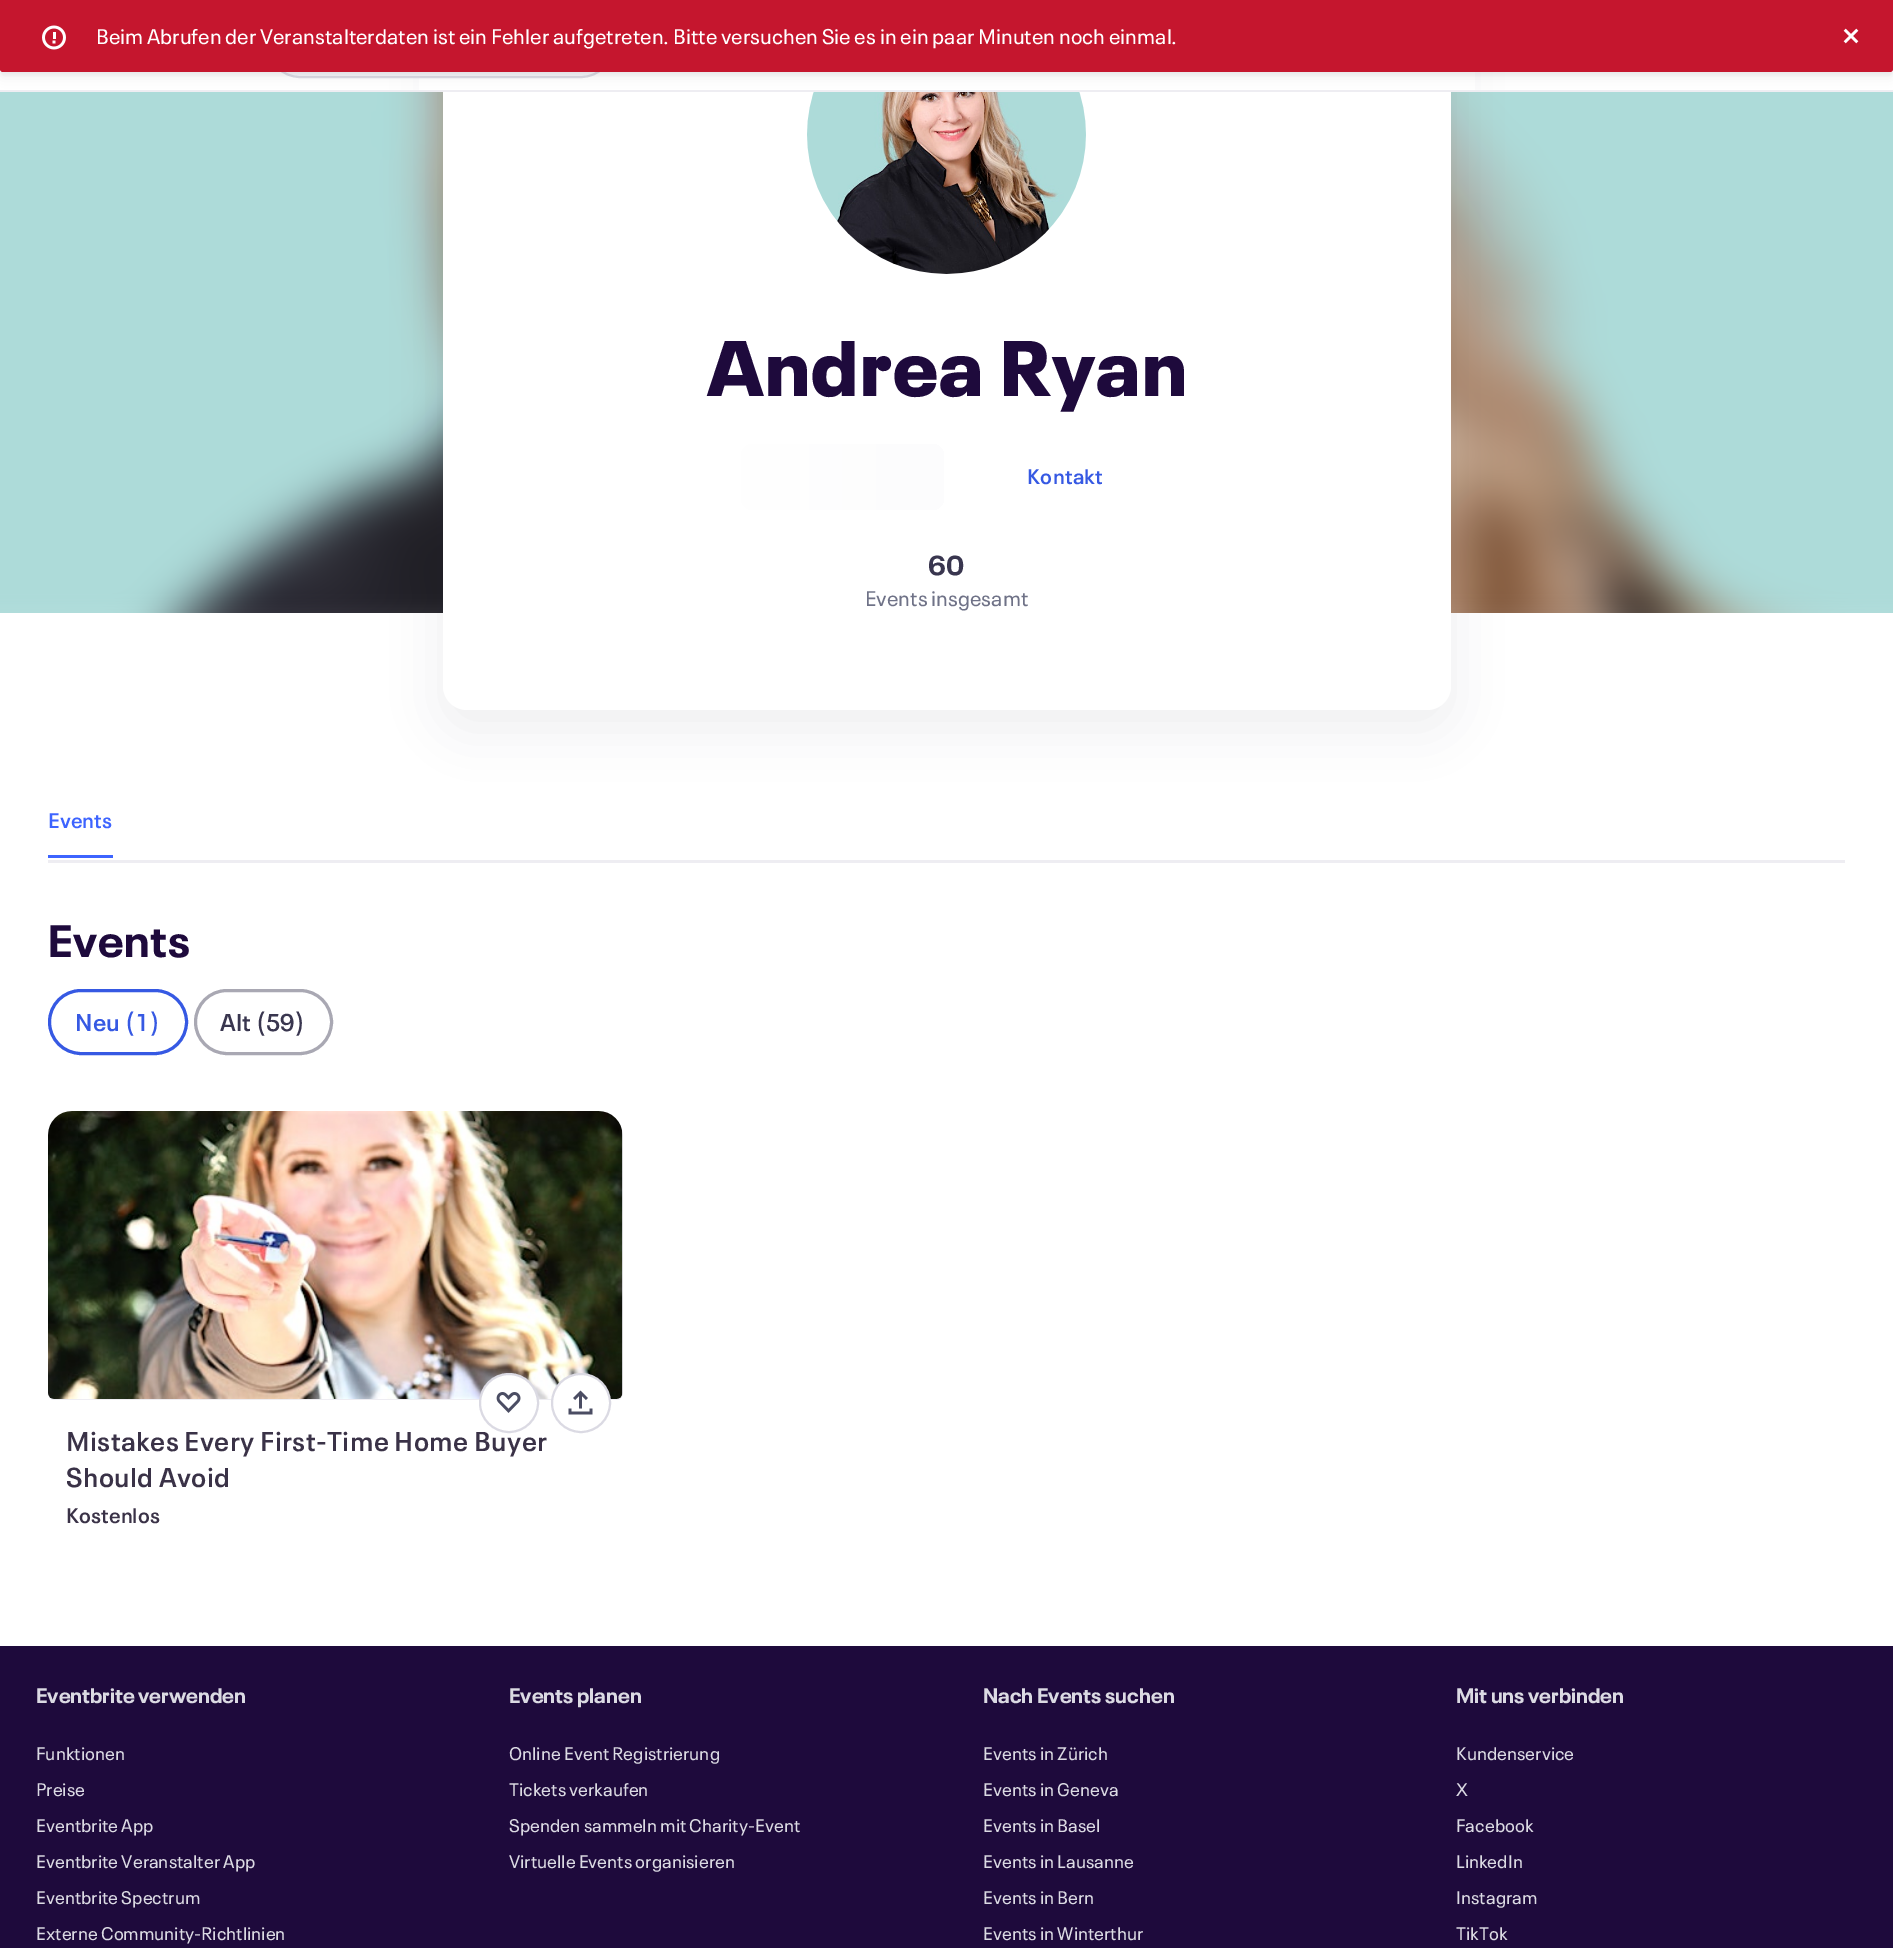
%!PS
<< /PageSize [1893 1948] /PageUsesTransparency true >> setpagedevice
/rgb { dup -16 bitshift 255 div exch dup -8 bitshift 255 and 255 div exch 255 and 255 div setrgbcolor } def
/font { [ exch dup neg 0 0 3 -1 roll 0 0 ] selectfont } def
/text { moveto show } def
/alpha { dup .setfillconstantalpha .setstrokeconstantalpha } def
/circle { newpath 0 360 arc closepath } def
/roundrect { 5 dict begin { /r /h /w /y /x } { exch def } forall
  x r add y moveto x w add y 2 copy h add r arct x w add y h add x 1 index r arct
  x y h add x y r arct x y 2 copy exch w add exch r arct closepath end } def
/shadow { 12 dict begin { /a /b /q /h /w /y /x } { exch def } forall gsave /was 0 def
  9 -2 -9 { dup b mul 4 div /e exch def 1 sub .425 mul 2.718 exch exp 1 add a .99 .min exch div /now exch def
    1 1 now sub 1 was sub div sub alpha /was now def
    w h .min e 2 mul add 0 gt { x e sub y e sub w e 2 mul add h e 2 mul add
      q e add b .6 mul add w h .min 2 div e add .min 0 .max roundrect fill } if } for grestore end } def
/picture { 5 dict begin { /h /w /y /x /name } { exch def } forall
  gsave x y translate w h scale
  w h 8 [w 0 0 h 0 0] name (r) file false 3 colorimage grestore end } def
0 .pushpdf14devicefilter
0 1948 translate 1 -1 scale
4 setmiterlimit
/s1 { /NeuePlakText-Regular 21 font 16#FFFFFF rgb } def
/s2 { /NeuePlakText-Regular 21 font 16#6F7287 rgb } def
/s3 { /NeuePlakText-SemiBold 21 font 16#3D64FF rgb } def
/s4 { /NeuePlakText-SemiBold 21 font 16#3A3247 rgb } def
/s5 { /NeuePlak-Bold 21 font 16#DBDAE3 rgb } def
/s6 { /NeuePlakText-Regular 18 font 16#DBDAE3 rgb } def
16#FFFFFF rgb
0 0 1893 1948 rectfill
(pic3.raw) 0 92 1893 521 picture
16#2E374D rgb
443 -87 1008 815 24 24 0.08 shadow
16#FFFFFF rgb
443 -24 1008 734 24 roundrect fill
419 69 1056 21 rectfill
16#F8F7FA rgb
268 13 345 64 32 roundrect gsave fill grestore
16#DBDAE3 rgb
2 setlinewidth
stroke
16#282C35 rgb
0 3 1893 72 3 1.5 0.06 shadow
16#EEEDF2 rgb
0 90 1893 2 rectfill
(pic4.raw) 807 92 279 182 picture
16#282C35 rgb
0 6 1893 72 3 6 0.06 shadow
16#C5162E rgb
0 0 moveto 1893 0 lineto 1893 69 lineto 1893 70.5 1891.5 72 1890 72 curveto 3 72 lineto 1.5 72 0 70.5 0 69 curveto closepath fill
(pic1.raw) 42 25 24 25 picture
s1
(Beim Abrufen der Veranstalterdaten ist ein Fehler aufgetreten. Bitte versuchen Sie es in ein paar Minuten noch einmal.) 96 44 text
(pic2.raw) 1843 28 16 16 picture
/NeuePlak-Black 78 font
16#1E0A3C rgb
707 396 moveto 1.5 0 (Andrea Ryan) ashow
gsave 741 444 203 66 12 roundrect clip newpath
<< /ShadingType 2 /ColorSpace /DeviceRGB /Coords [741 477 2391 477] /Extend [true true] /Function << /FunctionType 3 /Domain [0 1] /Functions [<< /FunctionType 2 /Domain [0 1] /C0 [1 1 1] /C1 [0.965 0.969 0.976] /N 1 >> << /FunctionType 2 /Domain [0 1] /C0 [0.965 0.969 0.976] /C1 [0.859 0.855 0.89] /N 1 >> << /FunctionType 2 /Domain [0 1] /C0 [0.859 0.855 0.89] /C1 [0.965 0.969 0.976] /N 1 >> << /FunctionType 2 /Domain [0 1] /C0 [0.965 0.969 0.976] /C1 [1 1 1] /N 1 >>] /Bounds [0.33 0.5 0.67] /Encode [0 1 0 1 0 1 0 1] >> >> shfill grestore
/NeuePlakText-SemiBold 21 font
16#3659E3 rgb
1027 484 moveto 0.25 0 (Kontakt) ashow
/NeuePlak-Bold 27 font
16#39364F rgb
928 575 moveto 0.4 0 (60) ashow
s2
(Events insgesamt) 865 606 text
16#EEEDF2 rgb
48 860 1797 3 rectfill
s3
(Events) 48 828 text
48 855 65 3 rectfill
/NeuePlak-Bold 45 font
16#1E0A3C rgb
48 957 moveto 0.75 0 (Events) ashow
16#3659E3 rgb
3 setlinewidth
49.5 990.5 137 63 31.5 roundrect stroke
/NeuePlakText-SemiBold 24 font
75 1031 moveto 0.25 0 (Neu \(1\)) ashow
16#A9A8B3 rgb
195.5 990.5 136 63 31.5 roundrect stroke
16#39364F rgb
220 1031 moveto 0.25 0 (Alt \(59\)) ashow
gsave
48 1112 575 288 6 roundrect clip newpath
16#EEEDF2 rgb
72 1112 moveto 599 1112 lineto 612.5 1112 623 1122.5 623 1136 curveto 623 1394 lineto 623 1397.5 620.5 1400 617 1400 curveto 54 1400 lineto 50.5 1400 48 1397.5 48 1394 curveto 48 1136 lineto 48 1122.5 58.5 1112 72 1112 curveto closepath fill
grestore
(pic5.raw) 48 1111 575 288 picture
/NeuePlakText-SemiBold 27 font
16#3A3247 rgb
66 1451 moveto 0.4 0 (Mistakes Every First-Time Home Buyer) ashow
16#FFFFFF rgb
509 1403 29 circle gsave fill grestore
16#DBDAE3 rgb
2 setlinewidth
stroke
(pic6.raw) 496 1392 25 21 picture
16#FFFFFF rgb
581 1403 29 circle gsave fill grestore
16#DBDAE3 rgb
stroke
(pic7.raw) 568 1390 25 25 picture
16#3A3247 rgb
66 1487 moveto 0.4 0 (Should Avoid) ashow
s4
(Kostenlos) 66 1523 text
16#1E0A3C rgb
0 1646 1893 302 rectfill
s5
(Eventbrite verwenden) 36 1703 text
s6
(Funktionen) 36 1760 text
(Preise) 36 1796 text
(Eventbrite App) 36 1832 text
(Eventbrite Veranstalter App) 36 1868 text
(Eventbrite Spectrum) 36 1904 text
(Externe Community-Richtlinien) 36 1940 text
s5
(Events planen) 509 1703 text
s6
(Online Event Registrierung) 509 1760 text
(Tickets verkaufen) 509 1796 text
(Spenden sammeln mit Charity-Event) 509 1832 text
(Virtuelle Events organisieren) 509 1868 text
s5
(Nach Events suchen) 983 1703 text
s6
(Events in Zürich) 983 1760 text
(Events in Geneva) 983 1796 text
(Events in Basel) 983 1832 text
(Events in Lausanne) 983 1868 text
(Events in Bern) 983 1904 text
(Events in Winterthur) 983 1940 text
s5
(Mit uns verbinden) 1456 1703 text
s6
(Kundenservice) 1456 1760 text
(X) 1456 1796 text
(Facebook) 1456 1832 text
(LinkedIn) 1456 1868 text
(Instagram) 1456 1904 text
(TikTok) 1456 1940 text
.poppdf14devicefilter showpage
